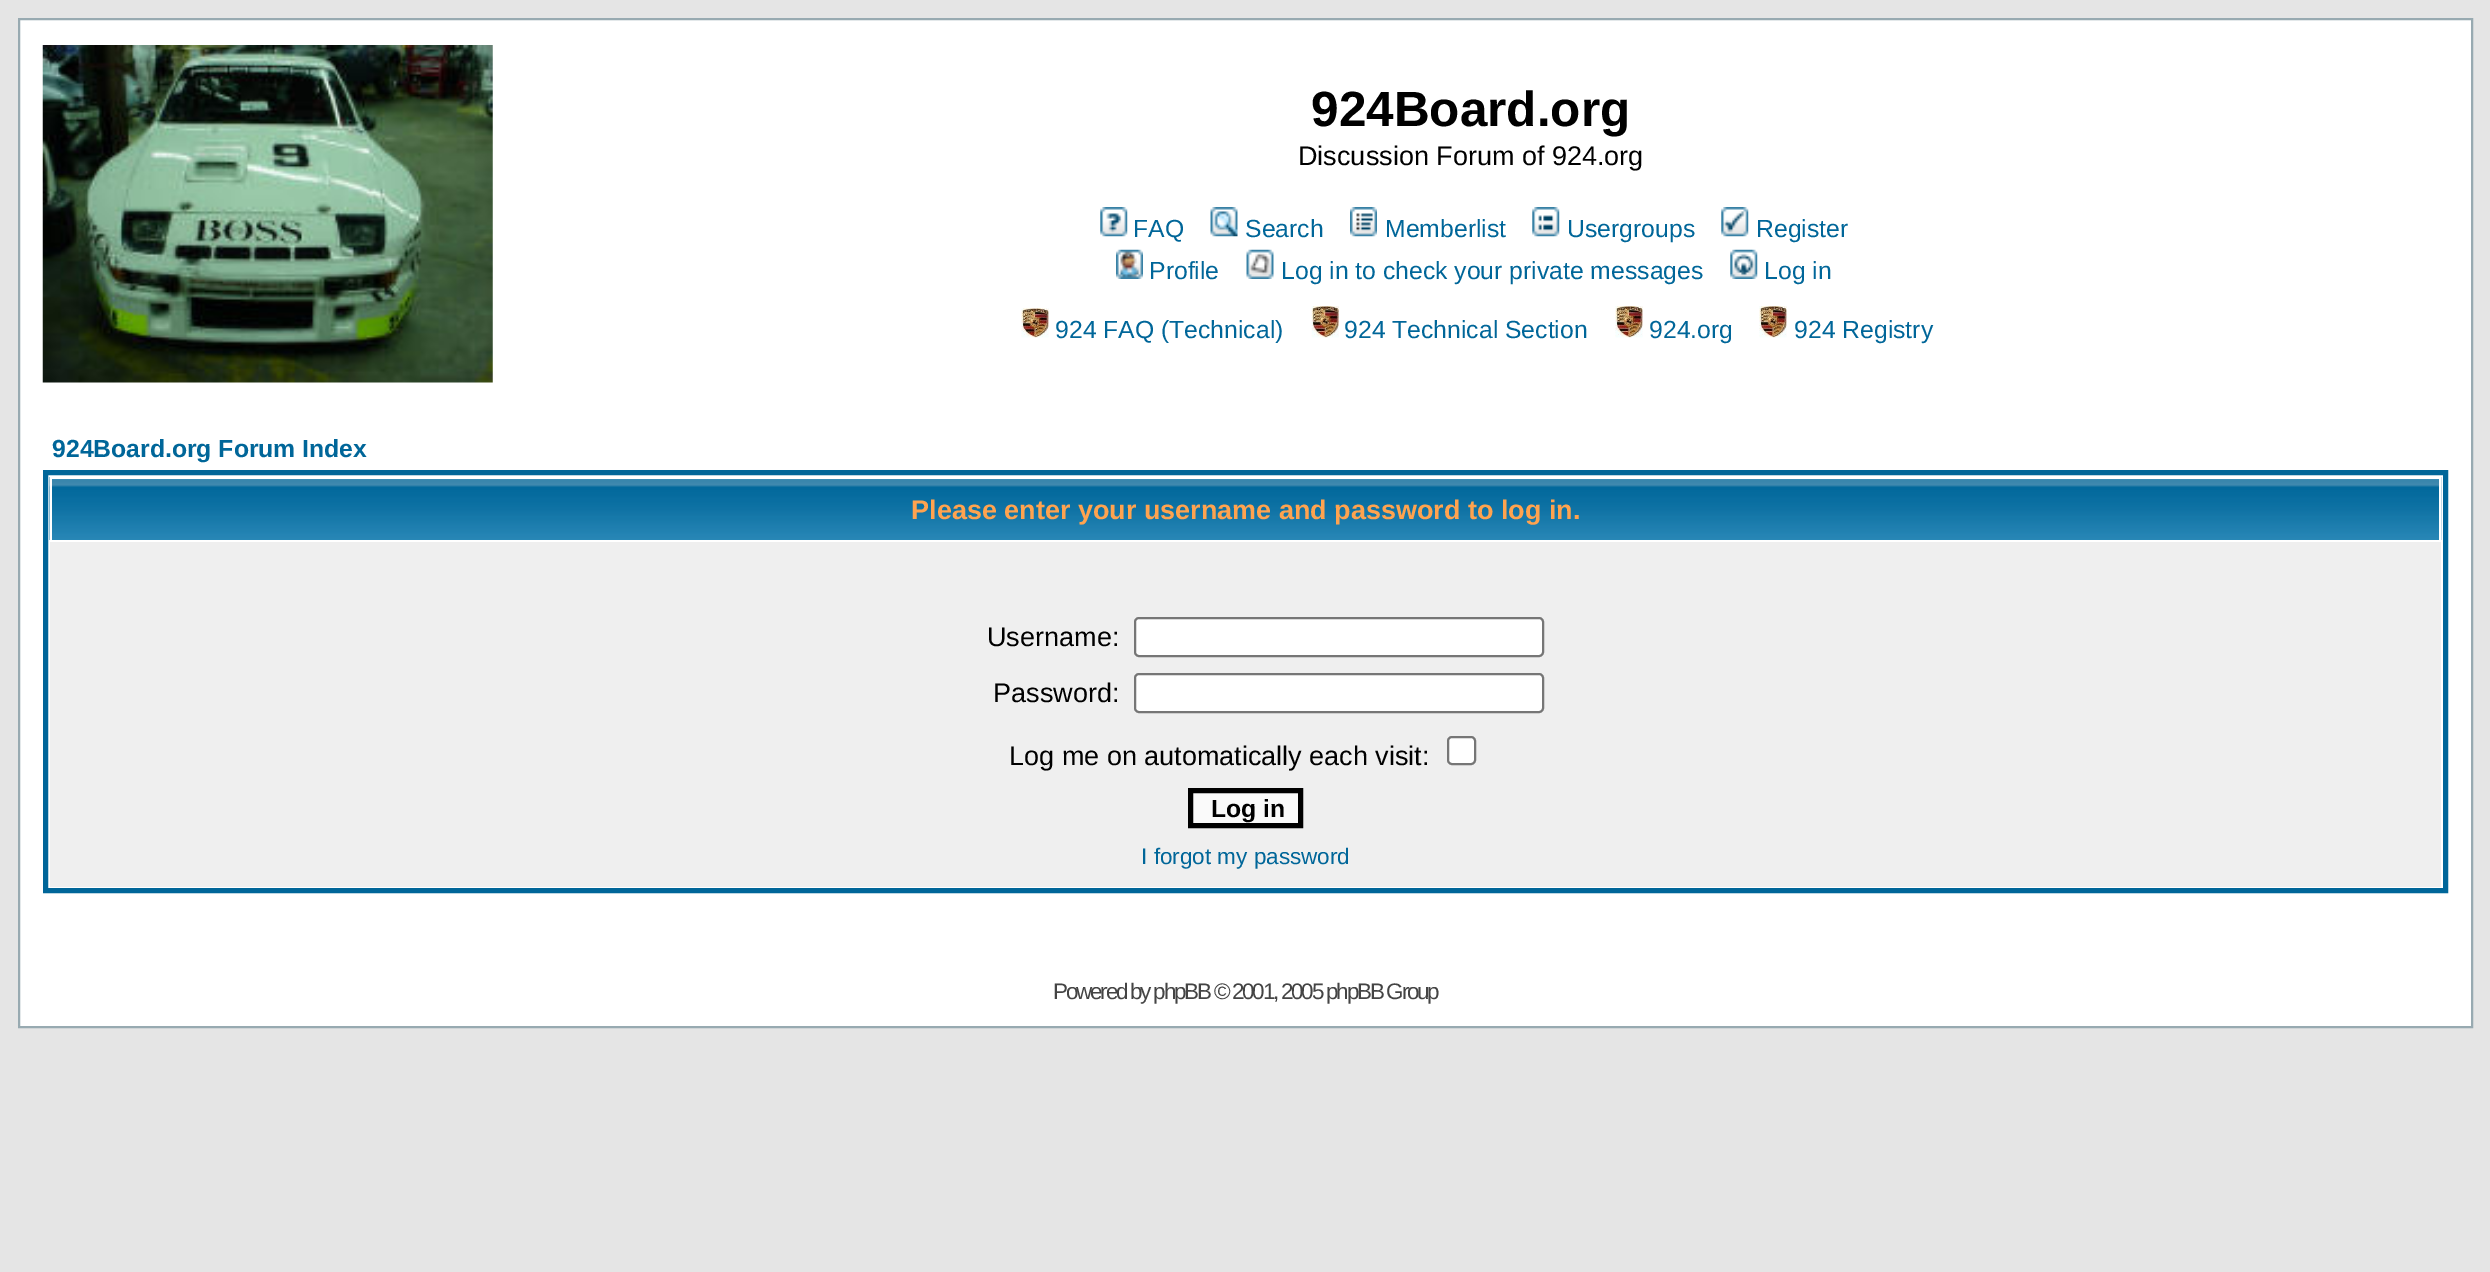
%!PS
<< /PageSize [2490 1272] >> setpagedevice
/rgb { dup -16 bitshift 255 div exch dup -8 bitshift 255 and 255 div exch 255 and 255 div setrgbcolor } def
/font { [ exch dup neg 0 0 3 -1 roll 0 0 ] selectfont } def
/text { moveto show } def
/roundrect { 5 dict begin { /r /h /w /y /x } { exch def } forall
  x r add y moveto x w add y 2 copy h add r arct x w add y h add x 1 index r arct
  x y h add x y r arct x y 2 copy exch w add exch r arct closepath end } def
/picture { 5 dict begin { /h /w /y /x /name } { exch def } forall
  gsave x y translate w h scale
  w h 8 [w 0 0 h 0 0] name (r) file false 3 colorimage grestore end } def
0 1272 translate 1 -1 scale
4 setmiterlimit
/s1 { /LiberationSans-Bold 49.5 font 16#000000 rgb } def
/s2 { /LiberationSans-Regular 27 font 16#000000 rgb } def
/s3 { /LiberationSans-Regular 24.75 font 16#006699 rgb } def
/s4 { /LiberationSans-Bold 24.75 font 16#006699 rgb } def
/s5 { /LiberationSans-Bold 27 font 16#FFA34F rgb } def
/s6 { /LiberationSans-Bold 24.75 font 16#000000 rgb } def
/s7 { /LiberationSans-Regular 22.5 font 16#006699 rgb } def
16#E5E5E5 rgb
0 0 2490 1272 rectfill
16#FFFFFF rgb
19 19 moveto 2472 19 lineto 2472 1027 lineto 19 1027 lineto closepath gsave fill grestore
16#98AAB1 rgb
2 setlinewidth
stroke
(pic1.raw) 42 45 451 338 picture
s1
(924Board.org) 1311 126 text
s2
(Discussion Forum of 924.org) 1298 165 text
(pic2.raw) 1100 207 28 30 picture
s3
(FAQ) 1133 237 text
(pic3.raw) 1210 207 28 30 picture
(Search) 1245 237 text
(pic4.raw) 1350 207 27 30 picture
(Memberlist) 1385 237 text
(pic5.raw) 1532 207 28 30 picture
(Usergroups) 1567 237 text
(pic6.raw) 1721 207 28 30 picture
(Register) 1756 237 text
(pic7.raw) 1116 249 27 30 picture
(Profile) 1149 279 text
(pic8.raw) 1246 249 28 30 picture
(Log in to check your private messages) 1281 279 text
(pic9.raw) 1730 249 28 30 picture
(Log in) 1764 279 text
(pic10.raw) 1021 308 28 30 picture
(924 FAQ \(Technical\)) 1055 338 text
(pic11.raw) 1311 306 28 32 picture
(924 Technical Section) 1344 338 text
(pic12.raw) 1615 306 28 32 picture
(924.org) 1649 338 text
(pic12.raw) 1759 306 28 32 picture
(924 Registry) 1794 338 text
s4
(924Board.org Forum Index) 52 457 text
5 setlinewidth
45.5 472.5 2400 418 rectstroke
(pic13.raw) 49 477 2393 63 picture
16#FFFFFF rgb
50 477 2391 2 rectfill
2439 477 2 63 rectfill
50 477 2 63 rectfill
s5
(Please enter your username and password to log in.) 911 519 text
16#EFEFEF rgb
50 542 2391 345 rectfill
s2
(Username:) 987 646 text
16#FFFFFF rgb
1135 618 408 38 4 roundrect gsave fill grestore
16#767676 rgb
2 setlinewidth
stroke
s2
(Password:) 993 702 text
16#FFFFFF rgb
1135 674 408 38 4 roundrect gsave fill grestore
16#767676 rgb
stroke
s2
(Log me on automatically each visit:) 1009 765 text
16#FFFFFF rgb
1448 737 27 27 4 roundrect gsave fill grestore
16#767676 rgb
stroke
16#FAFAFA rgb
1190.5 790.5 moveto 1300.5 790.5 lineto 1300.5 825.5 lineto 1190.5 825.5 lineto closepath gsave fill grestore
16#000000 rgb
5 setlinewidth
stroke
s6
(Log in) 1211 817 text
s7
(I forgot my password) 1141 864 text
16#444444 rgb
1053 999 moveto -2.25 0 (Powered by phpBB © 2001, 2005 phpBB Group) ashow
showpage
